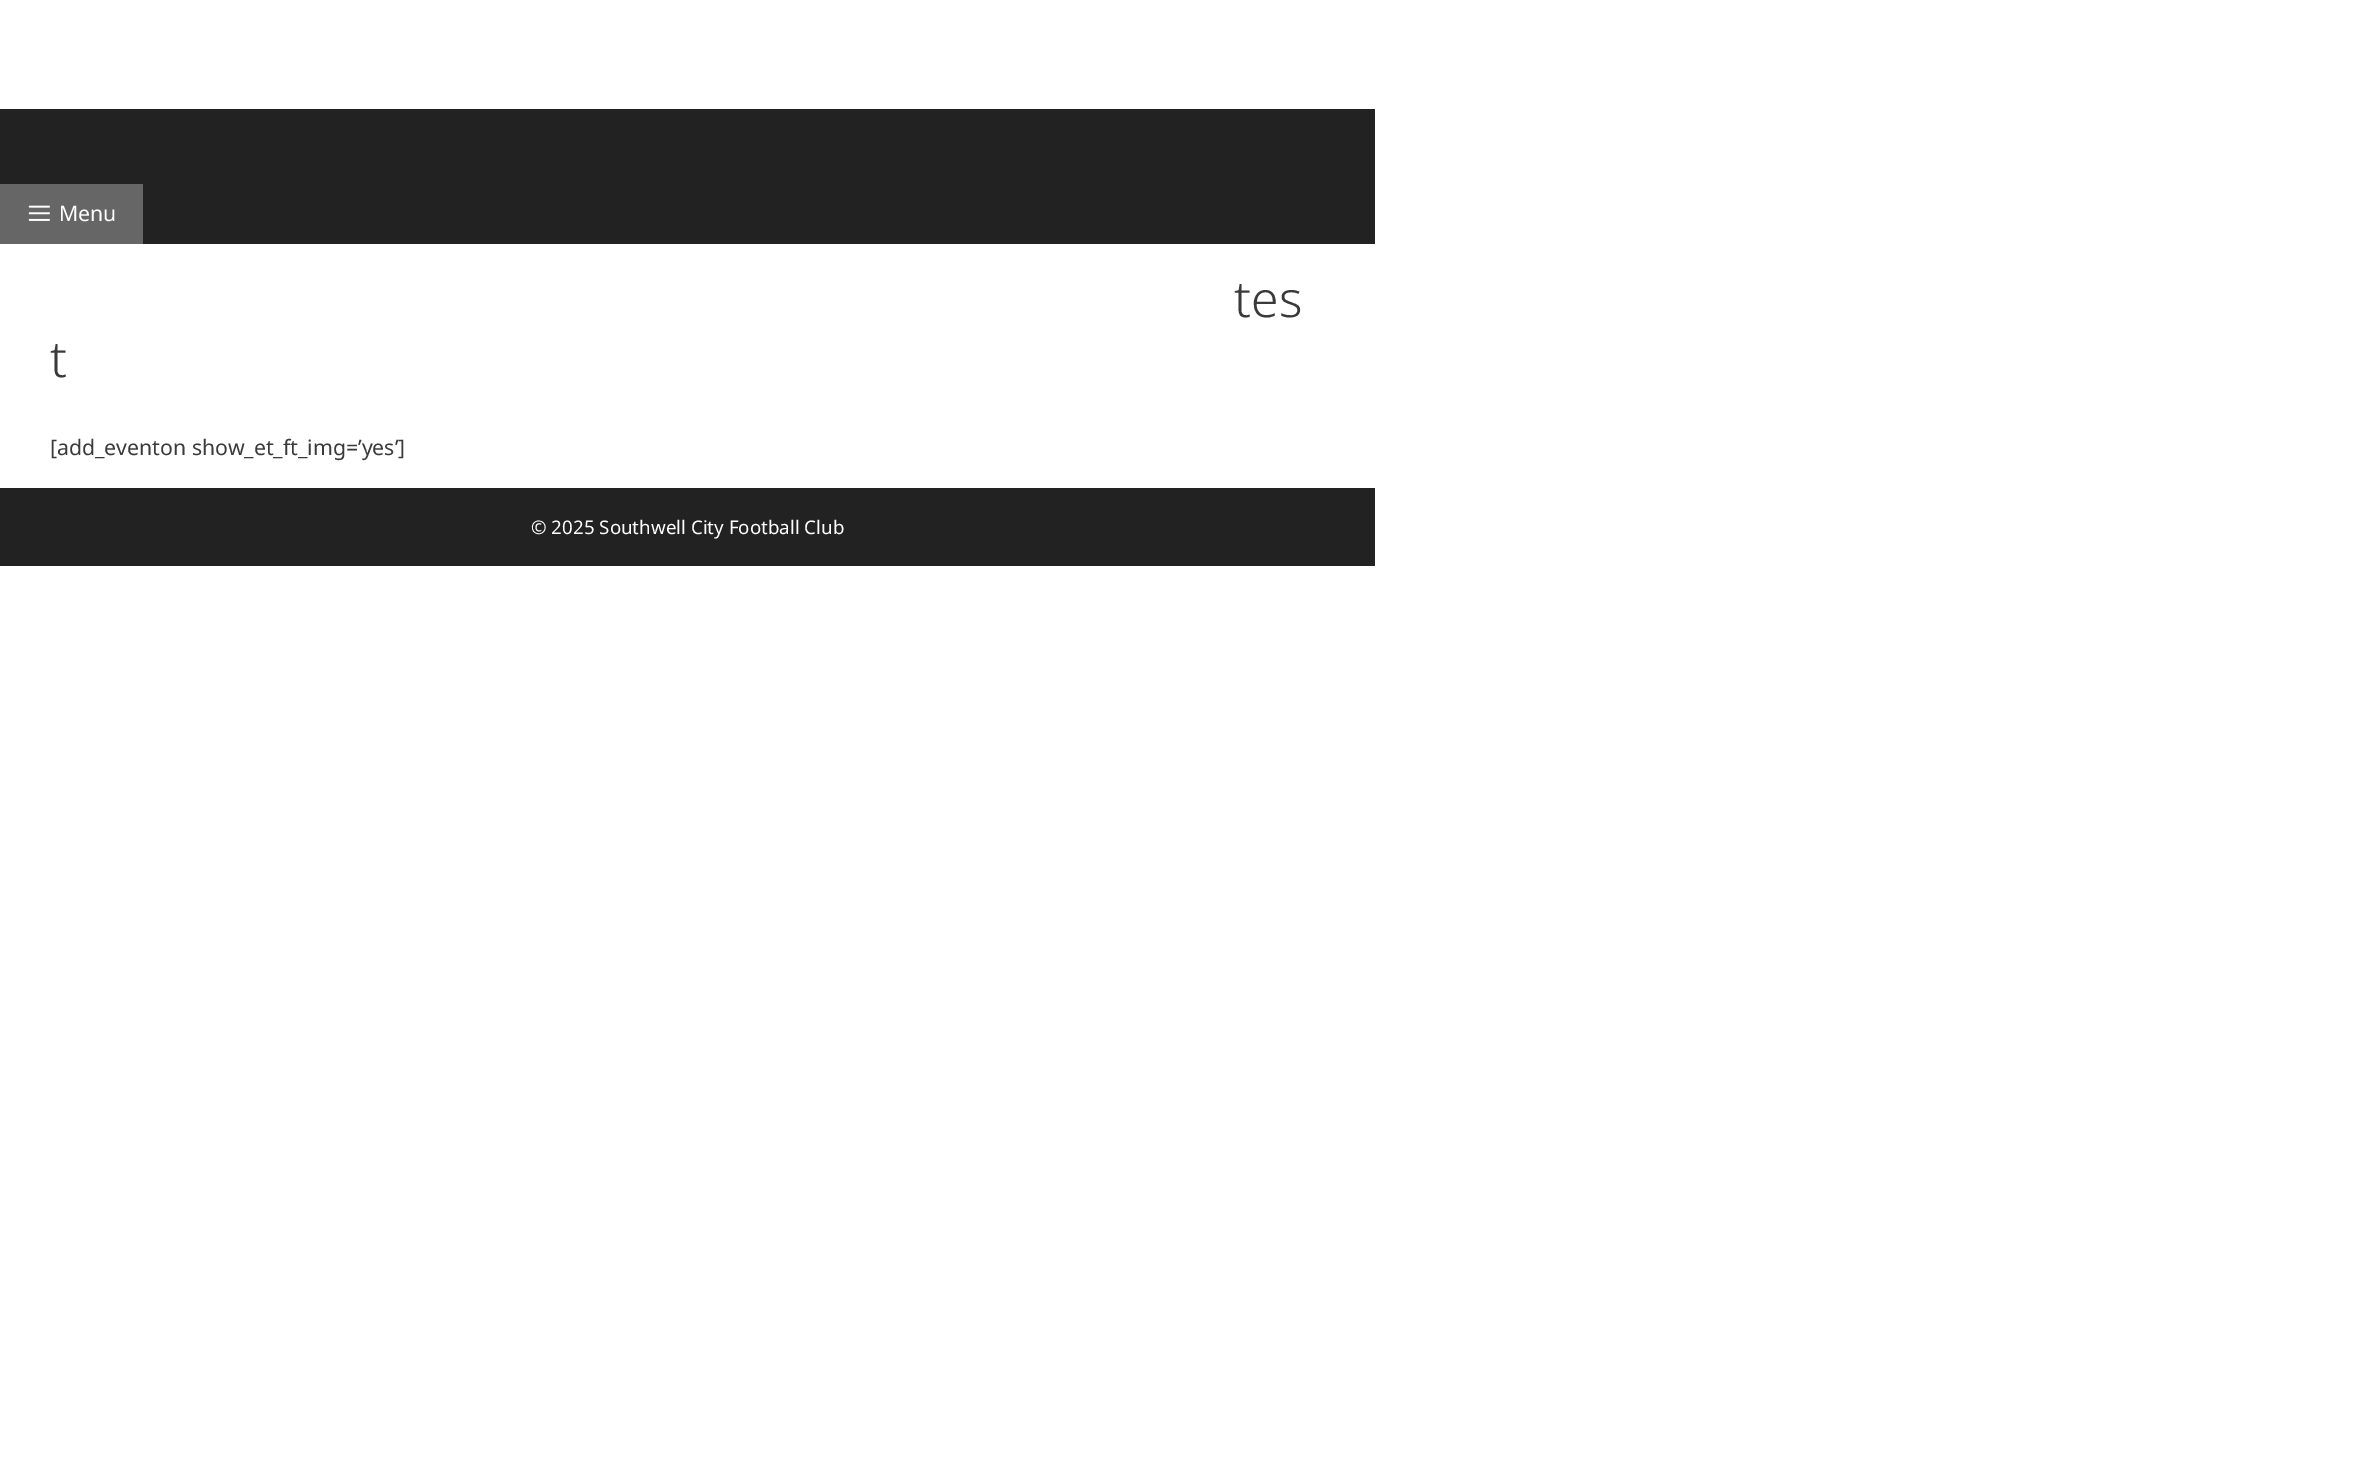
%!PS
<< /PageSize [2355 1457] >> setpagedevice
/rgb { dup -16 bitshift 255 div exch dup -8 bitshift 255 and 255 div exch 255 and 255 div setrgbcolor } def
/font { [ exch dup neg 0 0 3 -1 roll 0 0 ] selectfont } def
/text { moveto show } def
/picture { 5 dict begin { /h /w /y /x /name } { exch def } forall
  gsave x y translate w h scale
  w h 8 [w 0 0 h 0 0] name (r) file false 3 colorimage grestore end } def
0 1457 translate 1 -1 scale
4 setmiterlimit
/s1 { /NotoSans-Regular 21.25 font 16#FFFFFF rgb } def
/s2 { /NotoSans-Light 50 font 16#3A3A3A rgb } def
/s3 { /NotoSans-Regular 21.25 font 16#3A3A3A rgb } def
/s4 { /NotoSans-Regular 18.75 font 16#FFFFFF rgb } def
16#FFFFFF rgb
0 0 2355 1457 rectfill
16#222222 rgb
0 109 1375 135 rectfill
16#666666 rgb
0 184 143 60 rectfill
(pic1.raw) 28 205 22 16 picture
s1
(Menu) 59 221 text
s2
(tes) 1234 317 text
(t) 50 377 text
s3
([add_eventon show_et_ft_img=’yes’]) 50 455 text
16#222222 rgb
0 488 1375 78 rectfill
s4
(© 2025 Southwell City Football Club) 531 534 text
showpage
